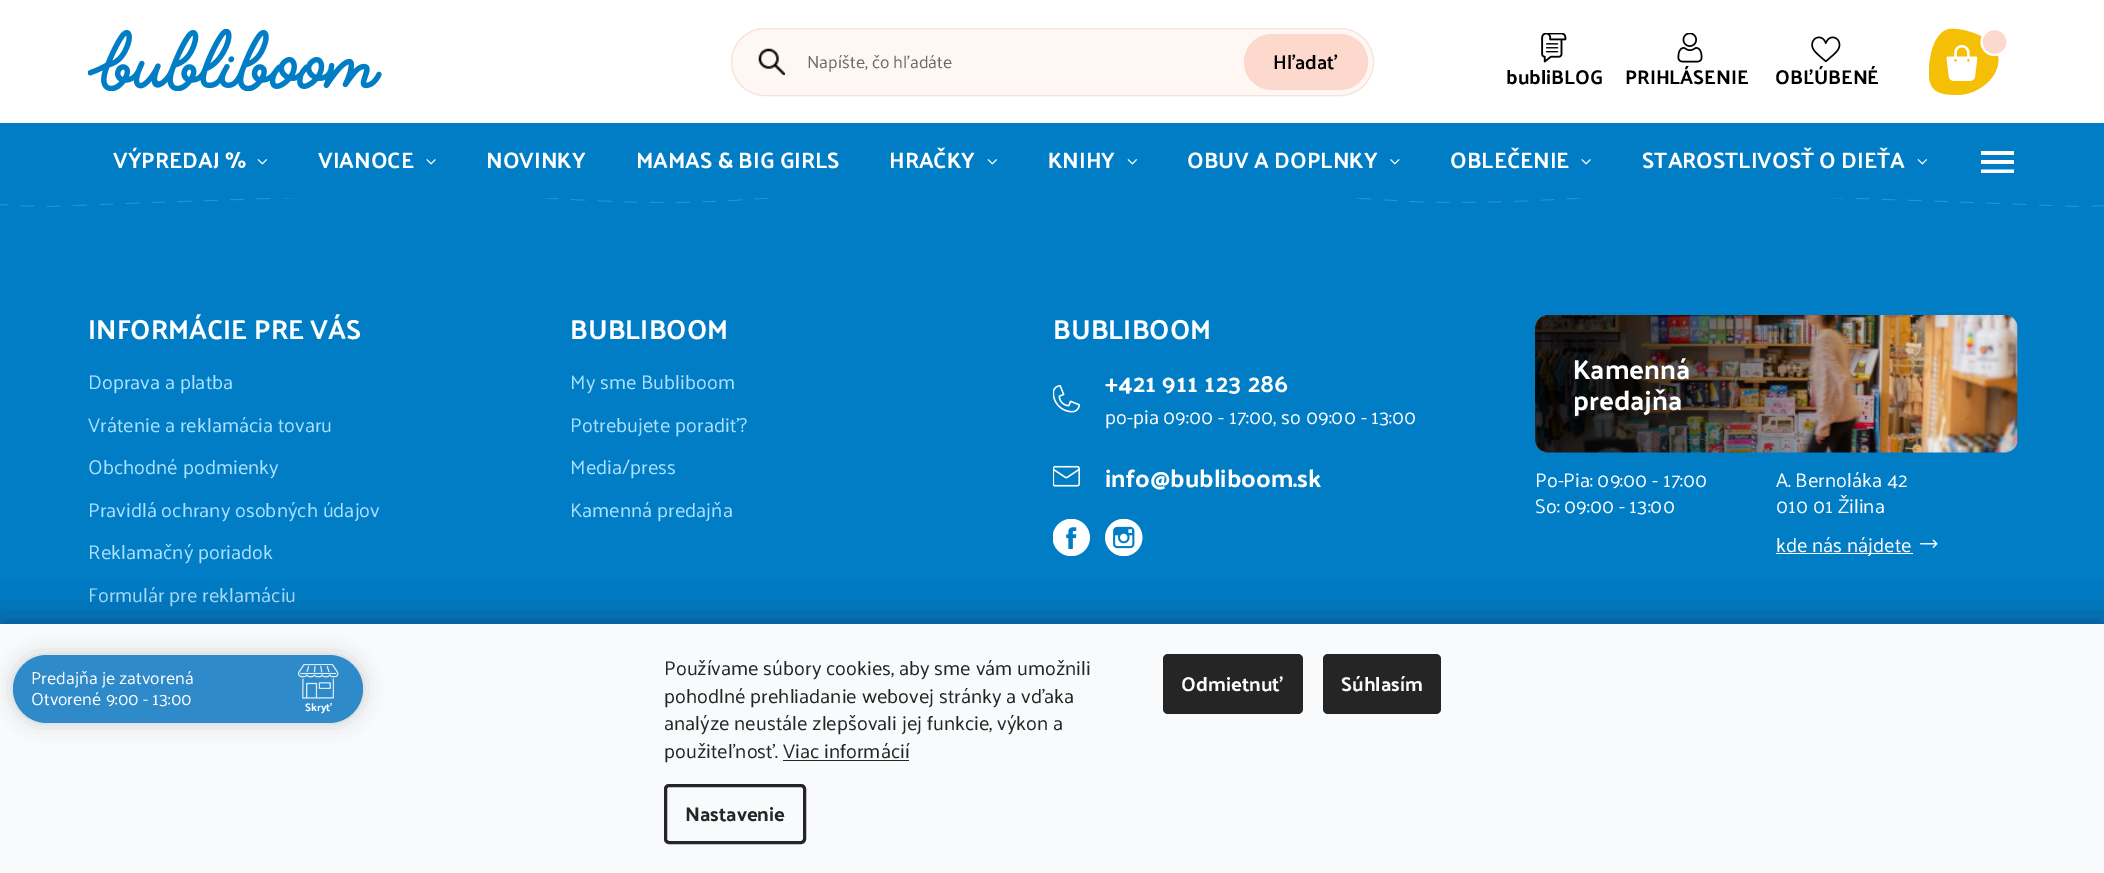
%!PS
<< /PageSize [2104 873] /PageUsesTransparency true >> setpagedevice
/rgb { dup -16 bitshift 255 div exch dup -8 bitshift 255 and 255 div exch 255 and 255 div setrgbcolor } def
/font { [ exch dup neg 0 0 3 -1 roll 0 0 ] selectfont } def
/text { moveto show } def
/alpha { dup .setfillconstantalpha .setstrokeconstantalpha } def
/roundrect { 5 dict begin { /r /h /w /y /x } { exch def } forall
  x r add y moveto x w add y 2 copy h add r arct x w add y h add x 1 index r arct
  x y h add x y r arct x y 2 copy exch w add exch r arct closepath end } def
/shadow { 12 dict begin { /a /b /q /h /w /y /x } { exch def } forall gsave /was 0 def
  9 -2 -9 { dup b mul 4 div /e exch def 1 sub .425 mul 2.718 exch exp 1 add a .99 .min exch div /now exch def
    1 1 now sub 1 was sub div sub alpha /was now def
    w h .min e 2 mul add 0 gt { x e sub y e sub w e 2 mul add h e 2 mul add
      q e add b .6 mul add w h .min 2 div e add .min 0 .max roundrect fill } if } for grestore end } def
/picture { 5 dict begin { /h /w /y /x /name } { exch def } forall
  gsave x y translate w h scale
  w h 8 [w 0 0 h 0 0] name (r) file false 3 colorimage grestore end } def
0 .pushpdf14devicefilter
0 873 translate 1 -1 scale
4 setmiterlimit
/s1 { /Palanquin-Regular 17.5 font 16#6A6A6A rgb } def
/s2 { /Palanquin-SemiBold 20 font 16#000000 rgb } def
/s3 { /Palanquin-Bold 20 font 16#000000 rgb } def
/s4 { /Palanquin-Bold 22.5 font 16#FFFFFF rgb } def
/s5 { /Palanquin-Bold 27.5 font 16#FFFFFF rgb } def
/s6 { /Palanquin-Regular 20 font 16#ABE0FF rgb } def
/s7 { /Palanquin-Bold 25 font 16#FFFFFF rgb } def
/s8 { /Palanquin-Regular 20 font 16#FFFFFF rgb } def
/s9 { /Palanquin-Regular 17.5 font 16#FFFFFF rgb } def
/s10 { /Palanquin-Bold 11 font 16#FFFFFF rgb } def
/s11 { /Palanquin-Regular 20 font 16#252525 rgb } def
/s12 { /Palanquin-Bold 20 font 16#252525 rgb } def
/s13 { /Palanquin-Bold 20 font 16#F8FAFB rgb } def
16#007DC5 rgb
0 0 2104 873 rectfill
16#FFFFFF rgb
0 0 2104 123 rectfill
(pic1.raw) 88 29 294 62 picture
16#FFF7F4 rgb
731 28 643 68 34 roundrect fill
(pic2.raw) 758 48 27 27 picture
16#F5E2DB rgb
731.5 28.5 642 67 33.5 roundrect stroke
s1
(Napíšte, čo hľadáte) 807 68 text
16#FDD8CC rgb
1244 34 124 56 28 roundrect fill
s2
(Hľadať) 1273 69 text
(pic3.raw) 1541 33 26 30 picture
s3
(bubliBLOG) 1506 84 text
(pic4.raw) 1677 33 26 30 picture
(PRIHLÁSENIE) 1625 84 text
(pic5.raw) 1811 36 30 27 picture
(OBĽÚBENÉ) 1775 84 text
(pic6.raw) 1929 28 78 67 picture
s4
(VÝPREDAJ %) 113 168 text
(pic7.raw) 257 159 11 6 picture
(VIANOCE) 318 168 text
(pic8.raw) 426 159 10 6 picture
(NOVINKY) 486 168 text
(MAMAS & BIG GIRLS) 636 168 text
(HRAČKY) 889 168 text
(pic7.raw) 987 159 11 6 picture
(KNIHY) 1048 168 text
(pic7.raw) 1127 159 11 6 picture
(OBUV A DOPLNKY) 1187 168 text
(pic9.raw) 1390 159 10 6 picture
(OBLEČENIE) 1450 168 text
(pic8.raw) 1581 159 10 6 picture
(STAROSTLIVOSŤ O DIEŤA) 1642 168 text
(pic7.raw) 1917 159 11 6 picture
1981 173 moveto 2014 173 lineto 2014 169.5 lineto 1981 169.5 lineto closepath 1981 164 moveto 2014 164 lineto 2014 160 lineto 1981 160 lineto closepath 1981 151 moveto 1981 155 lineto 2014 155 lineto 2014 151 lineto closepath fill
(pic10.raw) 0 198 2104 9 picture
s5
(INFORMÁCIE PRE VÁS) 88 339 text
s6
(Doprava a platba) 88 389 text
(Vrátenie a reklamácia tovaru) 88 432 text
(Obchodné podmienky) 88 474 text
(Pravidlá ochrany osobných údajov) 88 517 text
(Reklamačný poriadok) 88 559 text
(Formulár pre reklamáciu) 88 602 text
s5
(BUBLIBOOM) 570 339 text
s6
(My sme Bubliboom) 570 389 text
(Potrebujete poradiť?) 570 432 text
(Media/press) 570 474 text
(Kamenná predajňa) 570 517 text
s5
(BUBLIBOOM) 1053 339 text
(pic11.raw) 1053 385 27 28 picture
s7
(+421 911 123 286) 1105 392 text
s8
(po-pia 09:00 - 17:00, so 09:00 - 13:00) 1105 424 text
(pic12.raw) 1053 465 27 22 picture
s7
(info@bubliboom.sk) 1105 487 text
(pic13.raw) 1053 519 37 37 picture
(pic14.raw) 1105 519 38 37 picture
(pic15.raw) 1535 315 483 138 picture
s5
(Kamenná) 1573 379 text
(predajňa) 1573 410 text
s8
(Po-Pia: 09:00 - 17:00) 1535 487 text
(So: 09:00 - 13:00) 1535 513 text
(A. Bernoláka 42) 1776 487 text
(010 01 Žilina) 1776 513 text
(pic16.raw) 1920 539 18 9 picture
1776 553 137 1 rectfill
(kde nás nájdete) 1776 552 text
16#1B1939 rgb
0 624 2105 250 0 19 0.5 shadow
16#F8FAFB rgb
0 624 2104 249 rectfill
16#191919 rgb
13 655 350 68 34 9.5 0.2 shadow
16#2F8ACA rgb
13 655 350 68 34 roundrect fill
s9
(Predajňa je zatvorená) 31 684 text
(Otvorené 9:00 - 13:00) 31 705 text
(pic17.raw) 298 664 41 35 picture
s10
(Skryť) 305 711 text
s11
(Používame súbory cookies, aby sme vám umožnili) 664 675 text
(pohodlné prehliadanie webovej stránky a vďaka) 664 703 text
(analýze neustále zlepšovali jej funkcie, výkon a) 664 730 text
(použiteľnosť. Viac informácií) 664 758 text
783 760 126 1 rectfill
3 setlinewidth
665.5 785.5 139 57 3.5 roundrect stroke
s12
(Nastavenie) 685 821 text
1163 654 140 60 5 roundrect fill
s13
(Odmietnuť) 1181 691 text
16#252525 rgb
1323 654 118 60 5 roundrect fill
s13
(Súhlasím) 1341 691 text
.poppdf14devicefilter showpage
